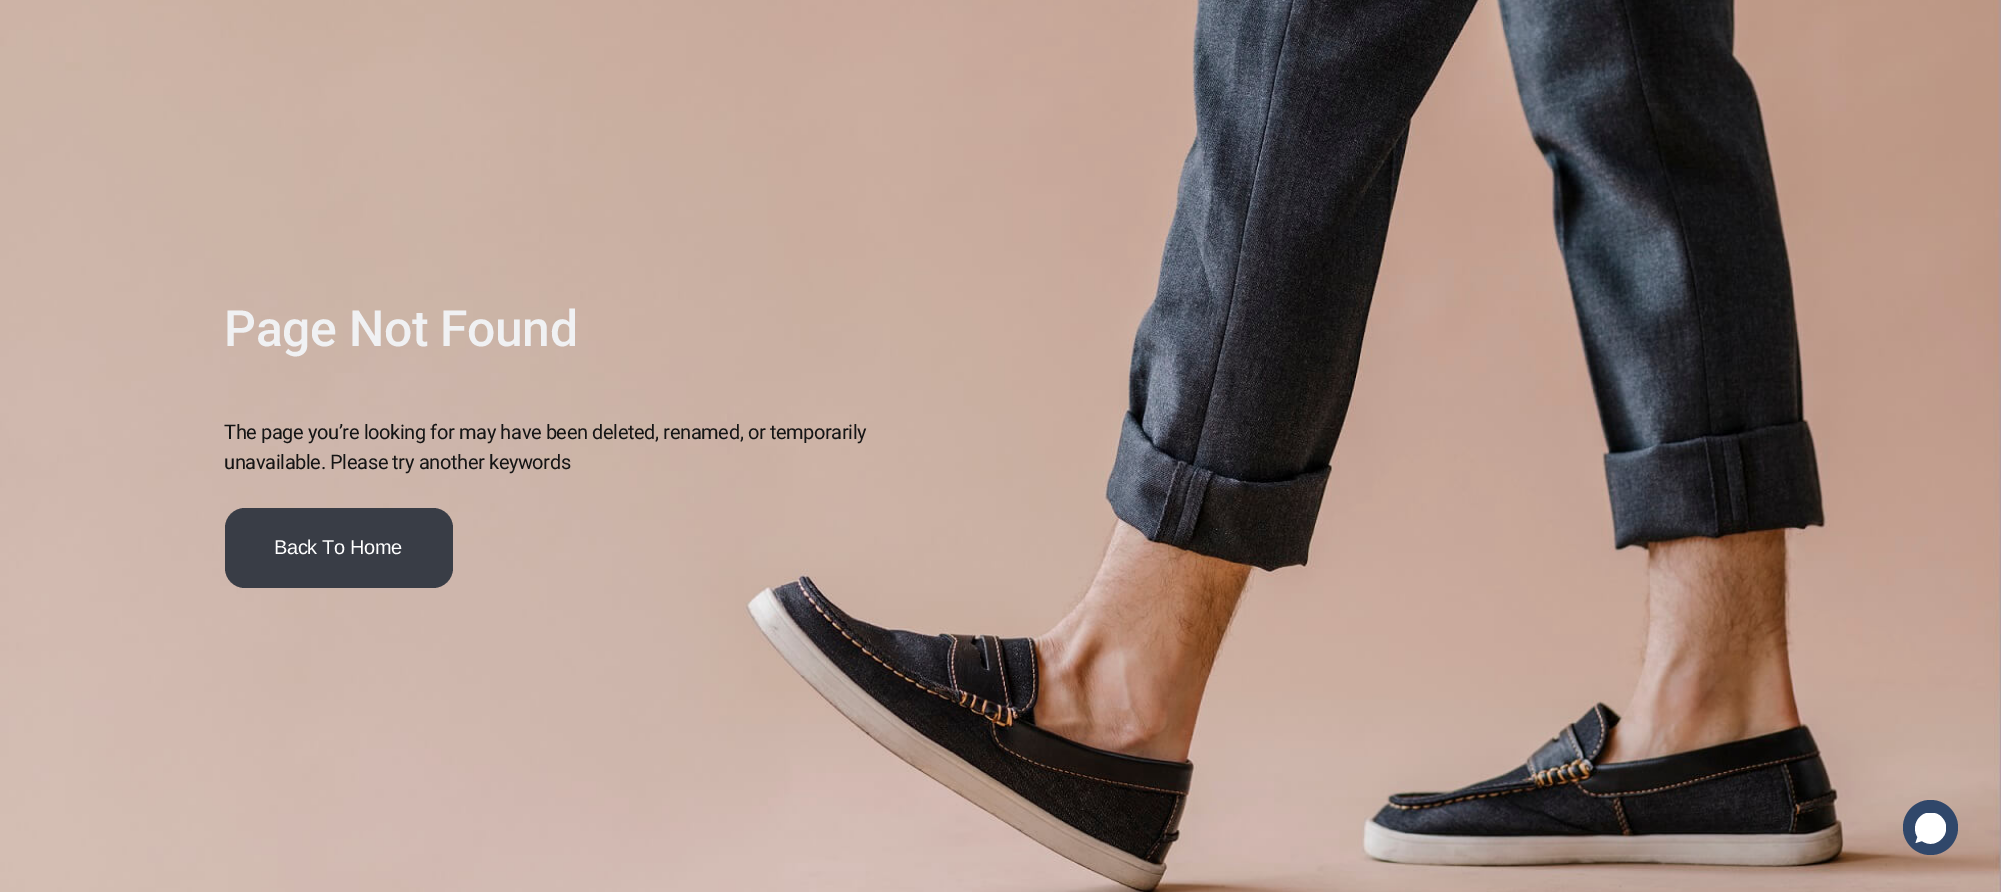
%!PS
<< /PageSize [2001 892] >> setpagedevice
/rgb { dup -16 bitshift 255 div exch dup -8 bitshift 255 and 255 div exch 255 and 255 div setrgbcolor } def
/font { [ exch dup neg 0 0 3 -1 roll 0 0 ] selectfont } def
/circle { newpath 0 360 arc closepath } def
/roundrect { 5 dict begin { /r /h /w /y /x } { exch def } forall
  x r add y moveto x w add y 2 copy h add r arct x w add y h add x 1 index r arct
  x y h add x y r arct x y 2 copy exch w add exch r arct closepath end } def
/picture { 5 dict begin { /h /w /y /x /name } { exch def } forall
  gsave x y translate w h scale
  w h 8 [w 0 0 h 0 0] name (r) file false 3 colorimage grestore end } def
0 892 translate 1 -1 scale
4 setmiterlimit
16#FFFFFF rgb
0 0 2001 892 rectfill
(pic1.raw) 0 0 2001 892 picture
/Roboto-Medium 50 font
16#F0F1F3 rgb
224 346 moveto -0.38 0 (Page Not Found) ashow
/Roboto-Regular 20 font
16#151515 rgb
224 439 moveto -0.38 0 (The page you’re looking for may have been deleted, renamed, or temporarily) ashow
224 469 moveto -0.38 0 (unavailable. Please try another keywords) ashow
16#393D46 rgb
225 508 228 80 20 roundrect fill
/LiberationSans-Regular 20 font
16#FFFFFF rgb
274 554 moveto -0.38 0 (Back To Home) ashow
16#30476A rgb
1930.5 827.5 27.5 circle fill
gsave
1915 813 31 31 rectclip
16#FFFFFF rgb
1930.5 812.5 moveto 1918 812.5 1911 827 1917.5 837 curveto 1915.5 843 lineto 1922 841 lineto 1937 851.5 1955 830.5 1941.5 817 curveto 1939 814 1934.5 812.5 1930.5 812.5 curveto closepath fill
grestore
showpage
